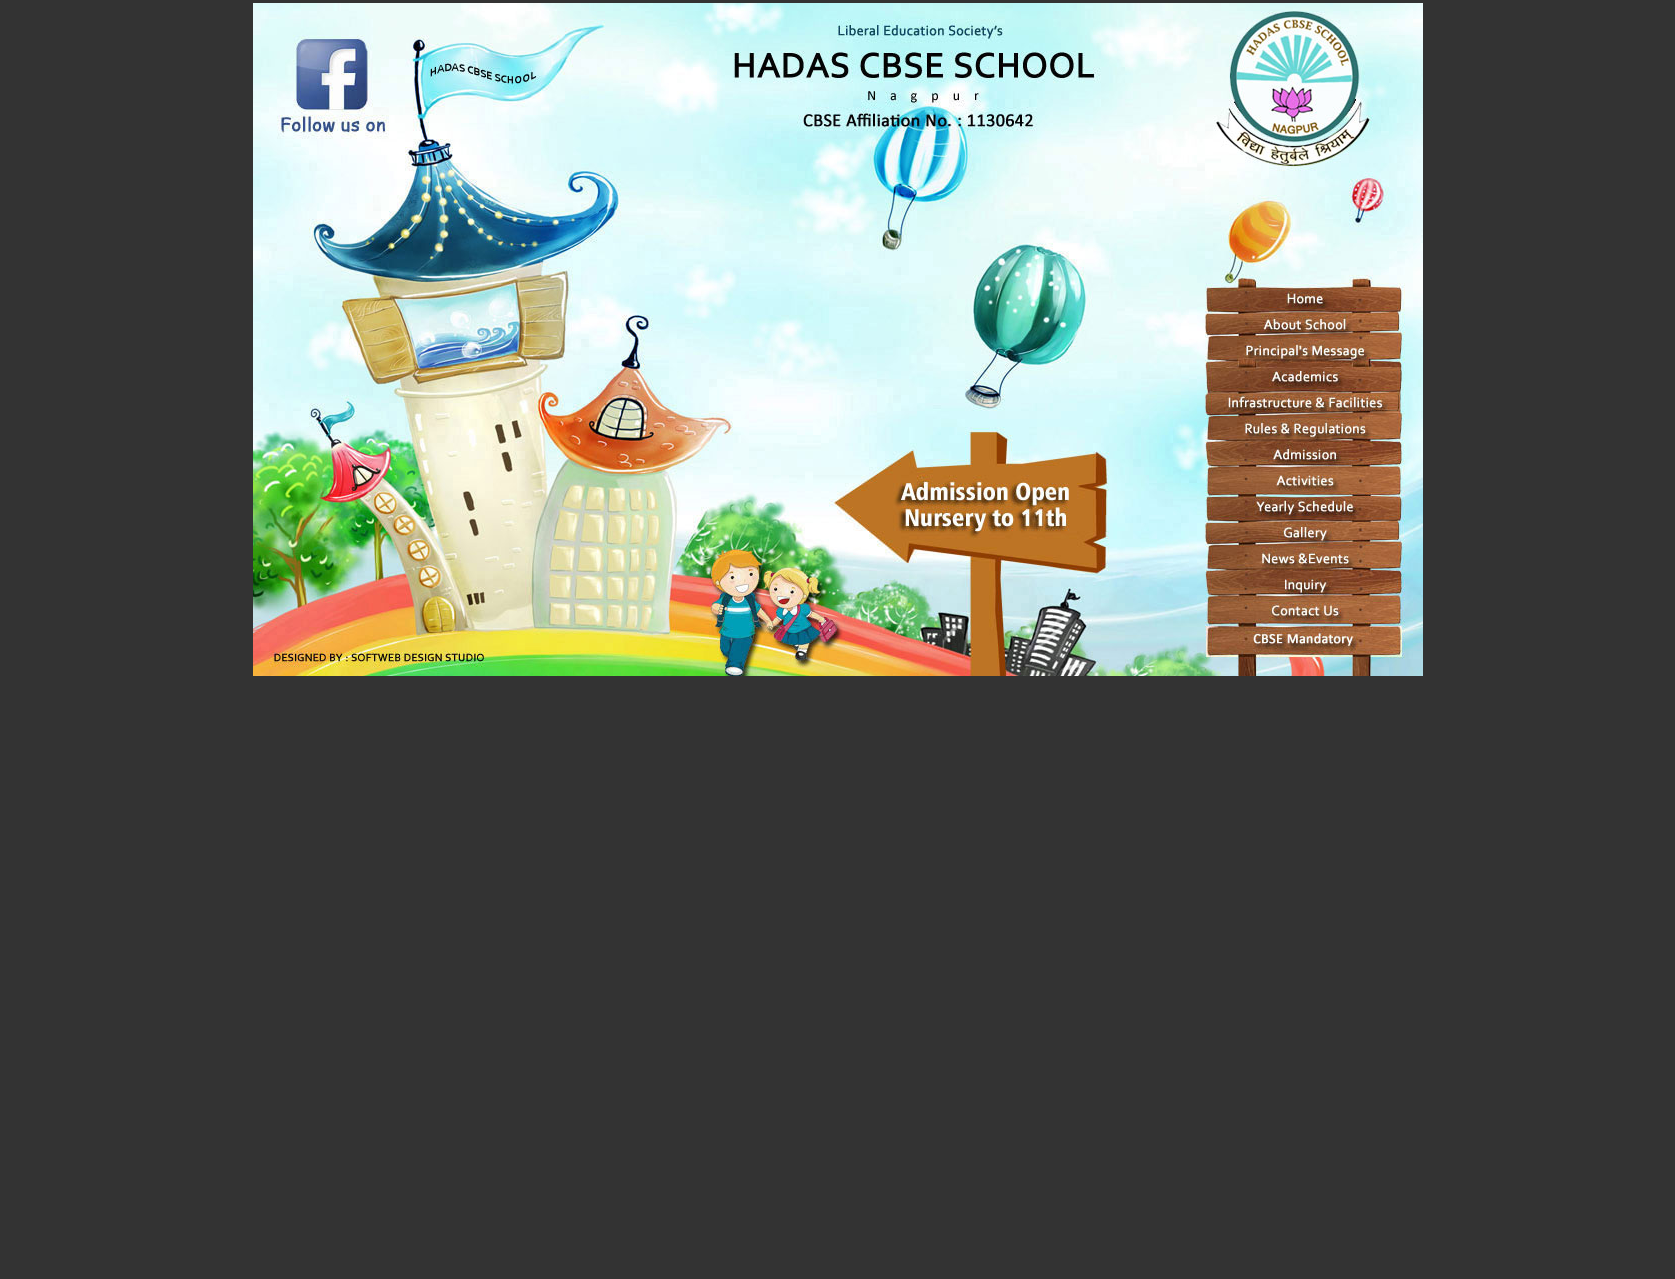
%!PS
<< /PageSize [1675 1279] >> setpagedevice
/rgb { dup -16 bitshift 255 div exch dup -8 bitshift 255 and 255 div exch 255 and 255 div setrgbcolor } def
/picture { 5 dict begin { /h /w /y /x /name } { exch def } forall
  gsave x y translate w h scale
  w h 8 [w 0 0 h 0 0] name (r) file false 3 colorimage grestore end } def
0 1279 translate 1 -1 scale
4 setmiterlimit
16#333333 rgb
0 0 1675 1279 rectfill
(pic1.raw) 253 3 1170 673 picture
showpage
